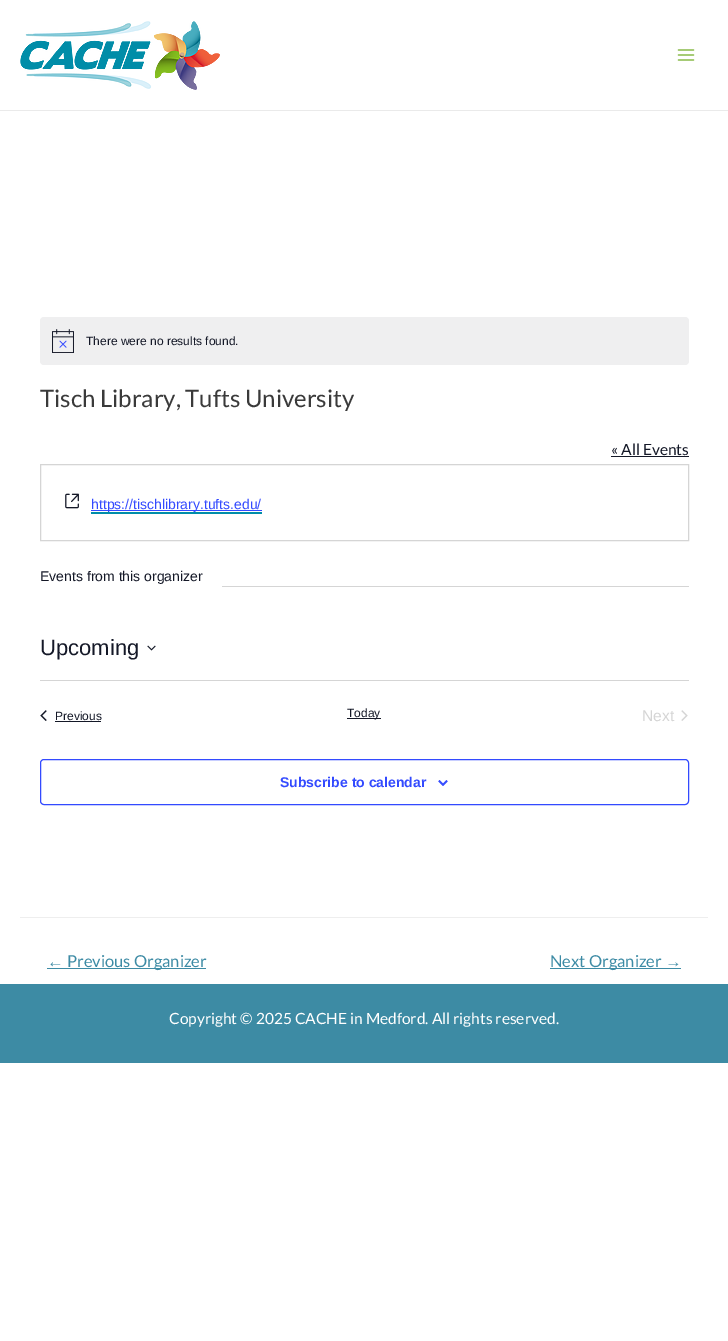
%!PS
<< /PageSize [728 1341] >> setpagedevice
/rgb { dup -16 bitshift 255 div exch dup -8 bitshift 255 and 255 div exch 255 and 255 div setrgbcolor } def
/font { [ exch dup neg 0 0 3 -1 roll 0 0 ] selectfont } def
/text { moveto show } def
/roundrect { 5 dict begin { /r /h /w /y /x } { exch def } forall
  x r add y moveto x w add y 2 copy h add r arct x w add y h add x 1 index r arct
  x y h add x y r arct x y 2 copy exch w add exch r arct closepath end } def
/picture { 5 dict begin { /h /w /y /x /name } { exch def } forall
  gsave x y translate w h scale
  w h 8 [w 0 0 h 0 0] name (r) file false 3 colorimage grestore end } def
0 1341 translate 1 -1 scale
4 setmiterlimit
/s1 { /LiberationSans-Regular 12 font 16#141827 rgb } def
/s2 { /Lato-Regular 24 font 16#3A3A3A rgb } def
/s3 { /Lato-Regular 15.5 font 16#141827 rgb } def
/s4 { /LiberationSans-Regular 14 font 16#334AFF rgb } def
/s5 { /LiberationSans-Regular 14 font 16#141827 rgb } def
/s6 { /LiberationSans-Regular 22 font 16#141827 rgb } def
/s7 { /LiberationSans-Regular 15.5 font 16#D5D5D5 rgb } def
/s8 { /LiberationSans-Bold 14 font 16#334AFF rgb } def
/s9 { /LiberationSans-Regular 16.5 font 16#3D8BA5 rgb } def
/s10 { /Lato-Regular 16.5 font 16#3D8BA5 rgb } def
/s11 { /Lato-Regular 15.5 font 16#FFFFFF rgb } def
16#FFFFFF rgb
0 0 728 1341 rectfill
16#EAEAEA rgb
0 110 728 1 rectfill
(pic1.raw) 20 21 200 69 picture
(pic2.raw) 677 49 18 12 picture
16#EFEFF0 rgb
40 317 649 48 4 roundrect fill
(pic3.raw) 52 329 22 24 picture
s1
(There were no results found.) 86 345 text
s2
(Tisch Library, Tufts University) 40 407 text
s3
(« All Events) 611 455 text
611 456 78 1 rectfill
16#D5D5D5 rgb
40.5 464.5 648 76 rectstroke
(pic4.raw) 65 493 14 16 picture
16#334AFF rgb
91 510 171 1 rectfill
s4
(https://tischlibrary.tufts.edu/) 91 509 text
16#008DA8 rgb
91 512 171 2 rectfill
s5
(Events from this organizer) 40 581 text
16#D5D5D5 rgb
222 586 467 1 rectfill
s6
(Upcoming) 40 655 text
(pic5.raw) 147 645 9 6 picture
16#D5D5D5 rgb
40 680 649 1 rectfill
(pic6.raw) 40 710 7 11 picture
s1
(Previous) 55 720 text
55 721 46 1 rectfill
347 718 34 1 rectfill
(Today) 347 717 text
s7
(Next) 642 721 text
(pic7.raw) 681 710 7 11 picture
16#334AFF rgb
40.5 759.5 648 45 3.5 roundrect stroke
s8
(Subscribe to calendar) 280 787 text
(pic8.raw) 438 780 10 6 picture
16#EEEEEE rgb
20 917 688 1 rectfill
s9
(←) 47 967 text
47 968 159 1 rectfill
s10
(Previous Organizer) 67 967 text
550 968 131 1 rectfill
(Next Organizer) 550 967 text
s9
(→) 665 967 text
16#3D8BA4 rgb
0 984 728 79 rectfill
s11
(Copyright © 2025 CACHE in Medford. All rights reserved.) 169 1024 text
showpage
